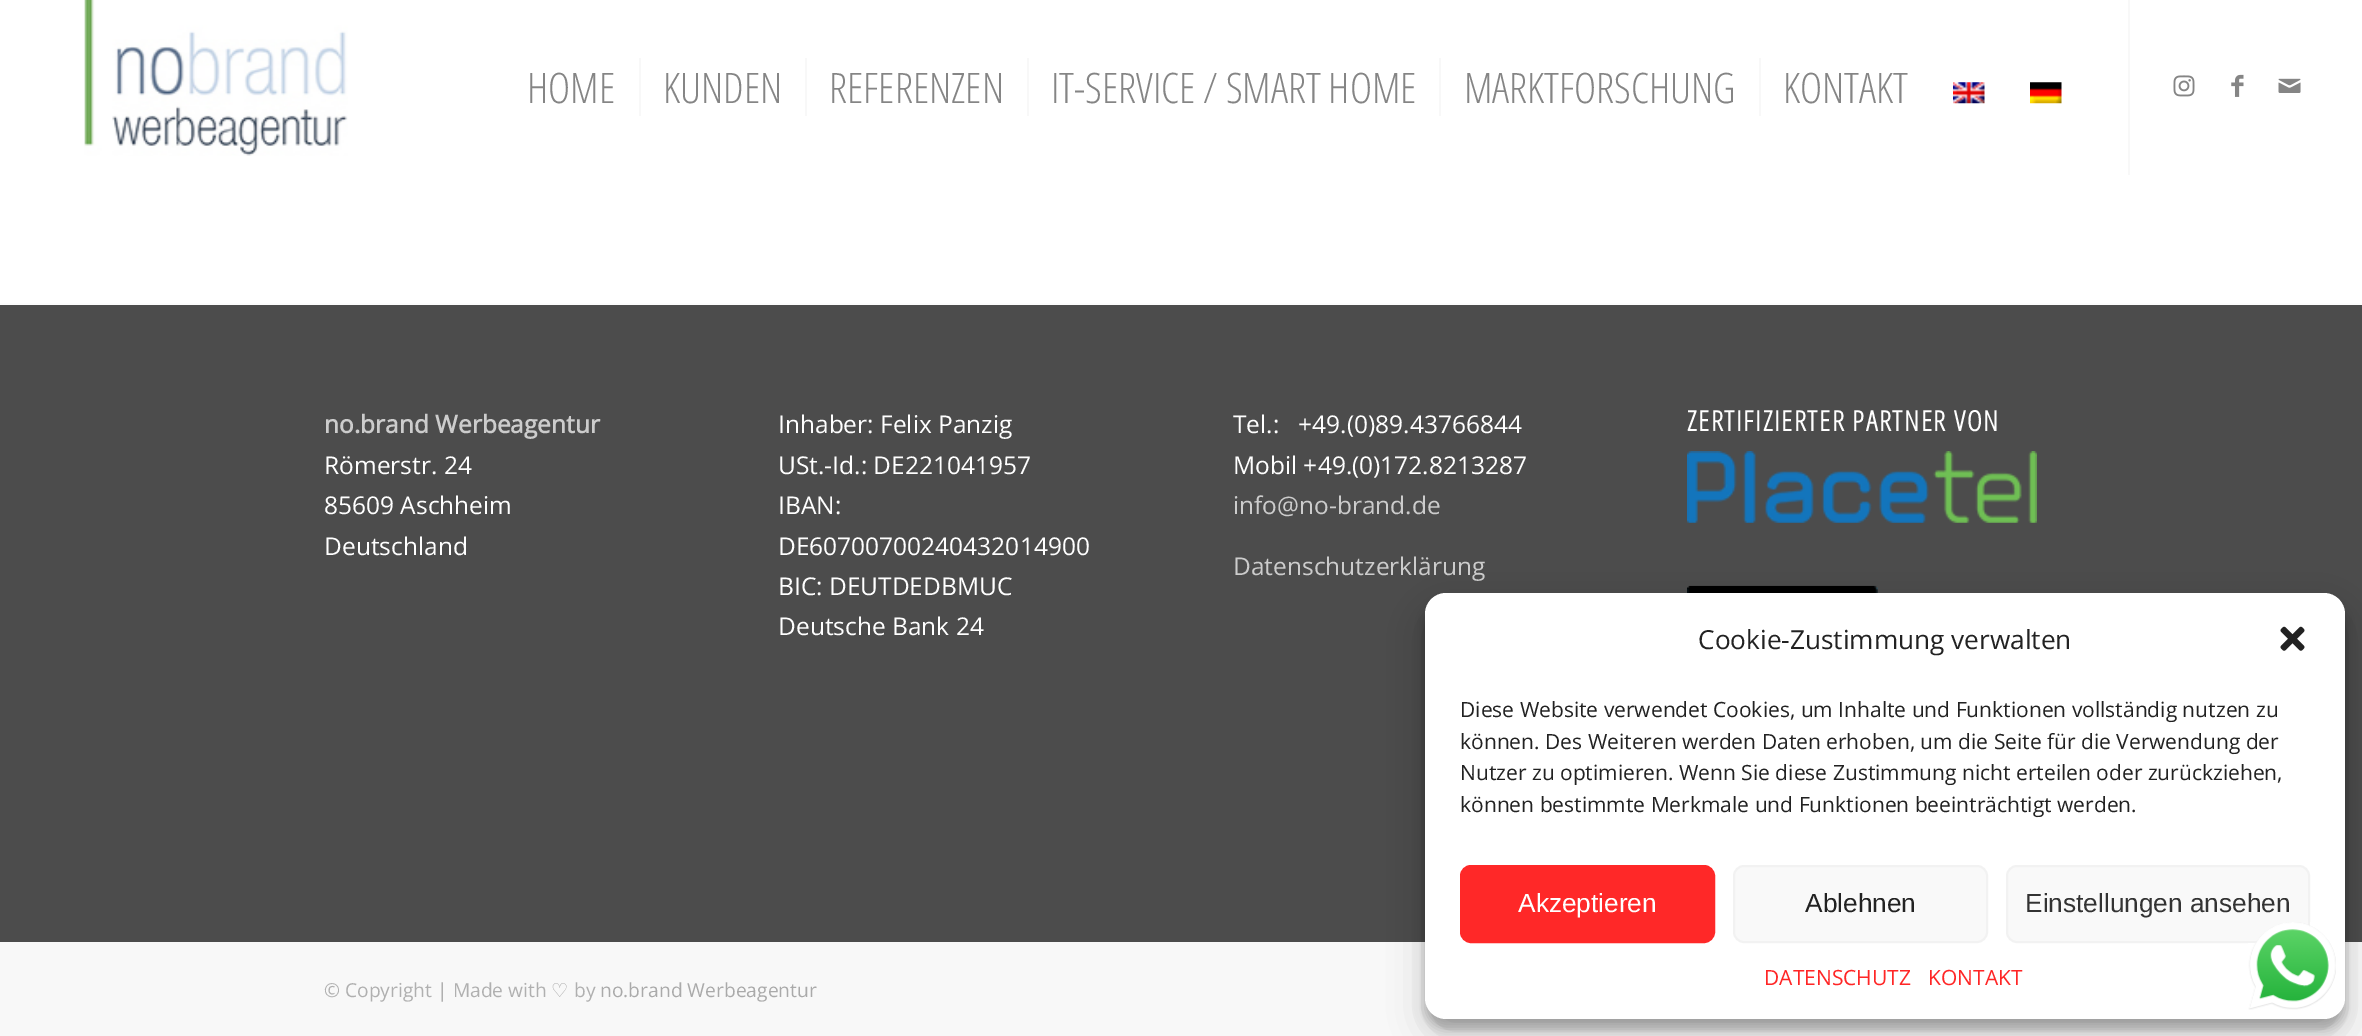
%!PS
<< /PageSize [2362 1036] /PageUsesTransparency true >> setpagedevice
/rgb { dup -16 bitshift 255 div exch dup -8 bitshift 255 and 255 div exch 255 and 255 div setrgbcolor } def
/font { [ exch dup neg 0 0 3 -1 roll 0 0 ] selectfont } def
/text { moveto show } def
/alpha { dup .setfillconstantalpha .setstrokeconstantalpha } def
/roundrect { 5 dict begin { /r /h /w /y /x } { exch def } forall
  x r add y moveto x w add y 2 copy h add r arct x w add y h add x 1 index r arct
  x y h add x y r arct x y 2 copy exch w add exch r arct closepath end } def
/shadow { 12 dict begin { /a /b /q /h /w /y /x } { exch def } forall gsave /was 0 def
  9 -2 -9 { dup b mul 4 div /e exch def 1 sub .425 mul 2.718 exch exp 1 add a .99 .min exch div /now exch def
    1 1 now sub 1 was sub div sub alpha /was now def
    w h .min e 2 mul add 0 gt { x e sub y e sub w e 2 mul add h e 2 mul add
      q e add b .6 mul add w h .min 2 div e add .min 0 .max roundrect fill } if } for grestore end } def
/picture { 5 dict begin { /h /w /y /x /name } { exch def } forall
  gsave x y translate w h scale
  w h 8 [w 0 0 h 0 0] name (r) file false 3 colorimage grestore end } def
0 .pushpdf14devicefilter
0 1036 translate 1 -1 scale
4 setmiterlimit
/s1 { /OpenSansCondensed-Light 42 font 16#858585 rgb } def
/s2 { /OpenSans-Bold 24.5 font 16#CCCCCC rgb } def
/s3 { /OpenSans-Regular 24.5 font 16#FFFFFF rgb } def
/s4 { /OpenSans-Regular 24.5 font 16#CCCCCC rgb } def
/s5 { /OpenSans-Regular 19.25 font 16#B0B0B0 rgb } def
/s6 { /DejaVuSans-Regular 19.25 font 16#B0B0B0 rgb } def
/s7 { /OpenSans-Regular 19.25 font 16#AAAAAA rgb } def
/s8 { /OpenSans-Regular 26.25 font 16#222222 rgb } def
/s9 { /OpenSans-Regular 21 font 16#222222 rgb } def
/s10 { /LiberationSans-Regular 26.25 font 16#FFFFFF rgb } def
/s11 { /LiberationSans-Regular 26.25 font 16#222222 rgb } def
/s12 { /LiberationSans-Regular 26.25 font 16#333333 rgb } def
/s13 { /OpenSans-Regular 21 font 16#FF2626 rgb } def
16#FFFFFF rgb
0 0 2362 1036 rectfill
(pic1.raw) 84 0 264 156 picture
16#F8F8F8 rgb
2128 0 2 175 rectfill
s1
(HOME) 527 103 text
(KUNDEN) 663 103 text
16#F8F8F8 rgb
639 58 2 58 rectfill
s1
(REFERENZEN) 829 103 text
16#F8F8F8 rgb
805 58 2 58 rectfill
s1
(IT-SERVICE / SMART HOME) 1051 103 text
16#F8F8F8 rgb
1027 58 2 58 rectfill
s1
(MARKTFORSCHUNG) 1464 103 text
16#F8F8F8 rgb
1439 58 2 58 rectfill
s1
(KONTAKT) 1783 103 text
16#F8F8F8 rgb
1759 58 2 58 rectfill
(pic2.raw) 1953 82 32 22 picture
(pic3.raw) 2030 82 32 22 picture
(pic4.raw) 2173 75 22 22 picture
(pic5.raw) 2231 74 13 23 picture
(pic6.raw) 2278 78 23 15 picture
16#4C4C4C rgb
0 305 2362 637 rectfill
16#FCFCFC rgb
0 303 2362 2 rectfill
s2
(no.brand Werbeagentur) 324 433 text
s3
(Römerstr. 24) 324 474 text
(85609 Aschheim) 324 514 text
(Deutschland) 324 555 text
(Inhaber: Felix Panzig) 778 433 text
(USt.-Id.: DE221041957) 778 474 text
(IBAN:) 778 514 text
(DE60700700240432014900) 778 555 text
(BIC: DEUTDEDBMUC) 778 595 text
(Deutsche Bank 24) 778 635 text
(Tel.:   +49.\(0\)89.43766844) 1233 433 text
(Mobil +49.\(0\)172.8213287) 1233 474 text
s4
(info@no-brand.de) 1233 514 text
(Datenschutzerklärung) 1233 575 text
/OpenSansCondensed-Bold 28 font
16#FFFFFF rgb
1687 431 moveto 1.75 0 (ZERTIFIZIERTER PARTNER VON) ashow
(pic7.raw) 1687 451 350 72 picture
(pic8.raw) 1687 585 191 8 picture
16#F8F8F8 rgb
0 942 2362 94 rectfill
s5
(© Copyright | Made with) 324 997 text
s6
(♡) 551 997 text
s5
(by) 574 997 text
s7
(no.brand Werbeagentur) 600 997 text
16#000000 rgb
1425 604 920 425 21 5 0.23 shadow
1425 611 920 425 21 17.5 0.19 shadow
16#FFFFFF rgb
1425 593 920 426 21 roundrect fill
s8
(Cookie-Zustimmung verwalten) 1698 649 text
(pic9.raw) 2280 626 25 25 picture
s9
(Diese Website verwendet Cookies, um Inhalte und Funktionen vollständig nutzen zu) 1460 717 text
(können. Des Weiteren werden Daten erhoben, um die Seite für die Verwendung der) 1460 749 text
(Nutzer zu optimieren. Wenn Sie diese Zustimmung nicht erteilen oder zurückziehen,) 1460 780 text
(können bestimmte Merkmale und Funktionen beeinträchtigt werden.) 1460 812 text
16#FF2828 rgb
1461 866 253 76 10 roundrect gsave fill grestore
2 setlinewidth
stroke
s10
(Akzeptieren) 1518 912 text
16#F9F9F9 rgb
1734 866 253 76 10 roundrect gsave fill grestore
16#F2F2F2 rgb
stroke
s11
(Ablehnen) 1805 912 text
16#F9F9F9 rgb
2007 866 302 76 10 roundrect gsave fill grestore
16#F2F2F2 rgb
stroke
s12
(Einstellungen ansehen) 2025 912 text
s13
(DATENSCHUTZ) 1764 985 text
(KONTAKT) 1928 985 text
(pic10.raw) 2248 922 88 88 picture
.poppdf14devicefilter showpage
